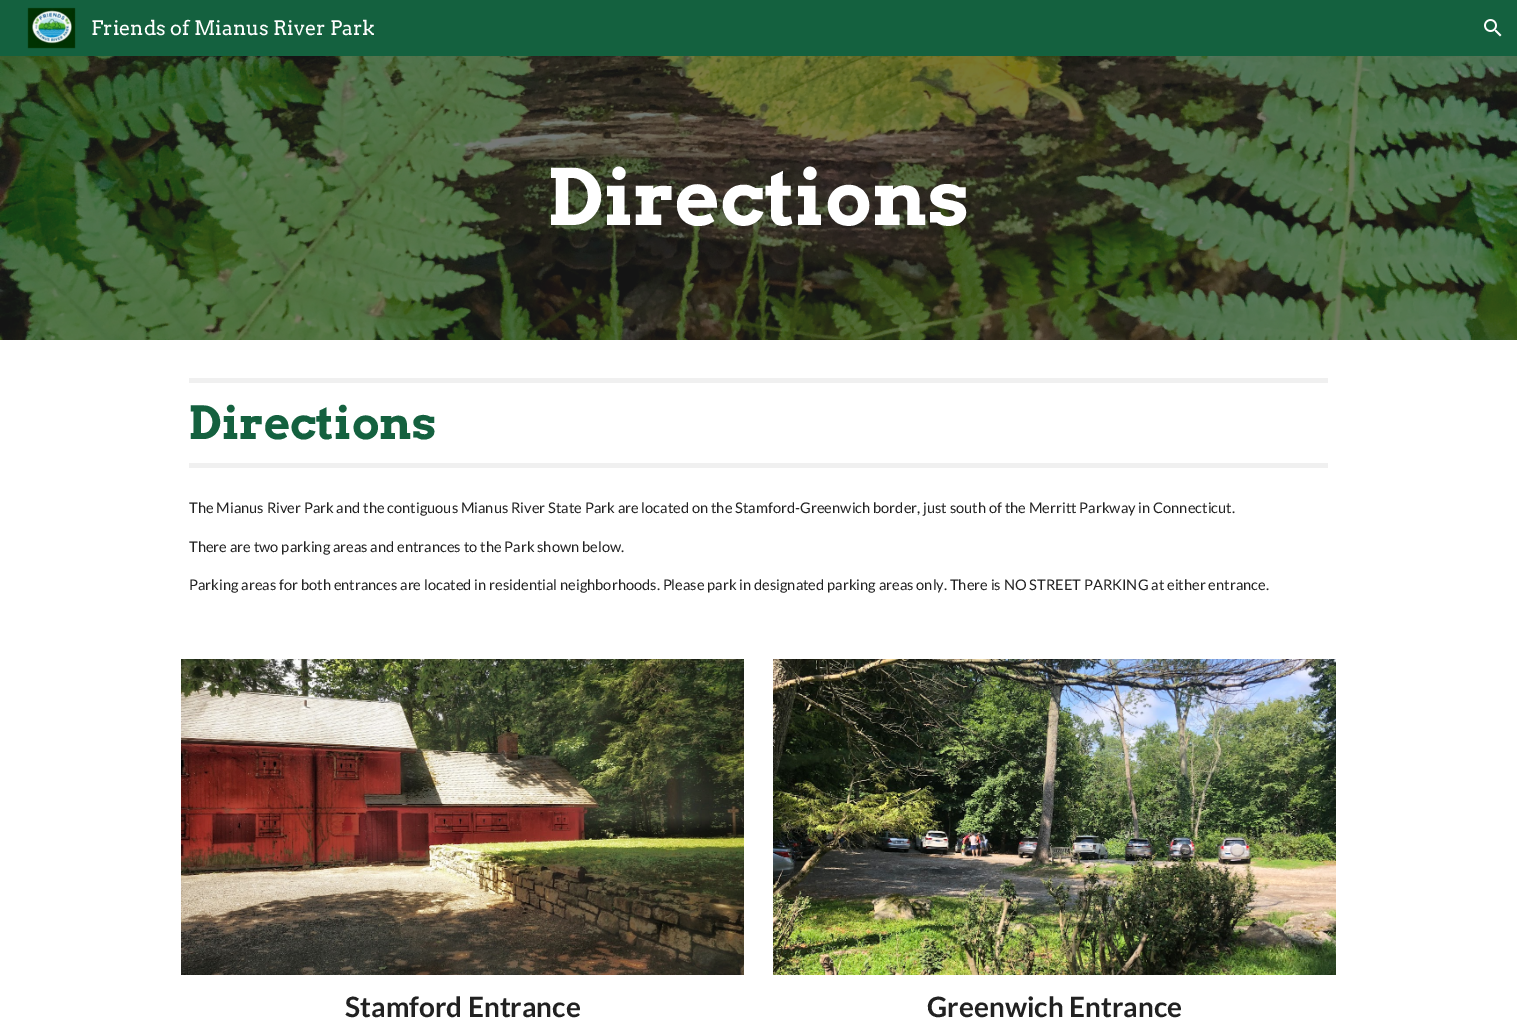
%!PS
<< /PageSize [1517 1027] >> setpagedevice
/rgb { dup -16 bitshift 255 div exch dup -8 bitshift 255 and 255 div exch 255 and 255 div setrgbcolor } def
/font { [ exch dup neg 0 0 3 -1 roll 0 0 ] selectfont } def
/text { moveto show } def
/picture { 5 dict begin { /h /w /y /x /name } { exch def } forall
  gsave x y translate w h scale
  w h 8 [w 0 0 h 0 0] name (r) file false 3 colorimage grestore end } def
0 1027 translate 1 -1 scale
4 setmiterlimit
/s1 { /Arvo-Regular 20 font 16#FFFFFF rgb } def
/s2 { /Arvo-Bold 77.5 font 16#FFFFFF rgb } def
/s3 { /Arvo-Bold 45.5 font 16#14613F rgb } def
/s4 { /Lato-Regular 14.67 font 16#212121 rgb } def
/s5 { /Lato-Bold 28 font 16#212121 rgb } def
16#FFFFFF rgb
0 0 1517 1027 rectfill
16#14613F rgb
0 0 1517 56 rectfill
(pic1.raw) 27 7 49 42 picture
s1
(Friends of Mianus River Park) 91 35 text
(pic2.raw) 1484 19 18 18 picture
(pic3.raw) 0 56 1517 284 picture
s2
(Directions) 548 225 text
16#F0F0F0 rgb
189 378 1139 5 rectfill
189 463 1139 5 rectfill
s3
(Directions) 189 439 text
s4
(The Mianus River Park and the contiguous Mianus River State Park are located on the Stamford-Greenwich border, just south of the Merritt Parkway in Connecticut.) 189 513 text
(There are two parking areas and entrances to the Park shown below.) 189 552 text
(Parking areas for both entrances are located in residential neighborhoods. Please park in designated parking areas only. There is NO STREET PARKING at either entrance.) 189 590 text
(pic4.raw) 181 659 563 316 picture
s5
(Stamford Entrance) 345 1017 text
(pic5.raw) 773 659 563 316 picture
(Greenwich Entrance) 927 1017 text
showpage
